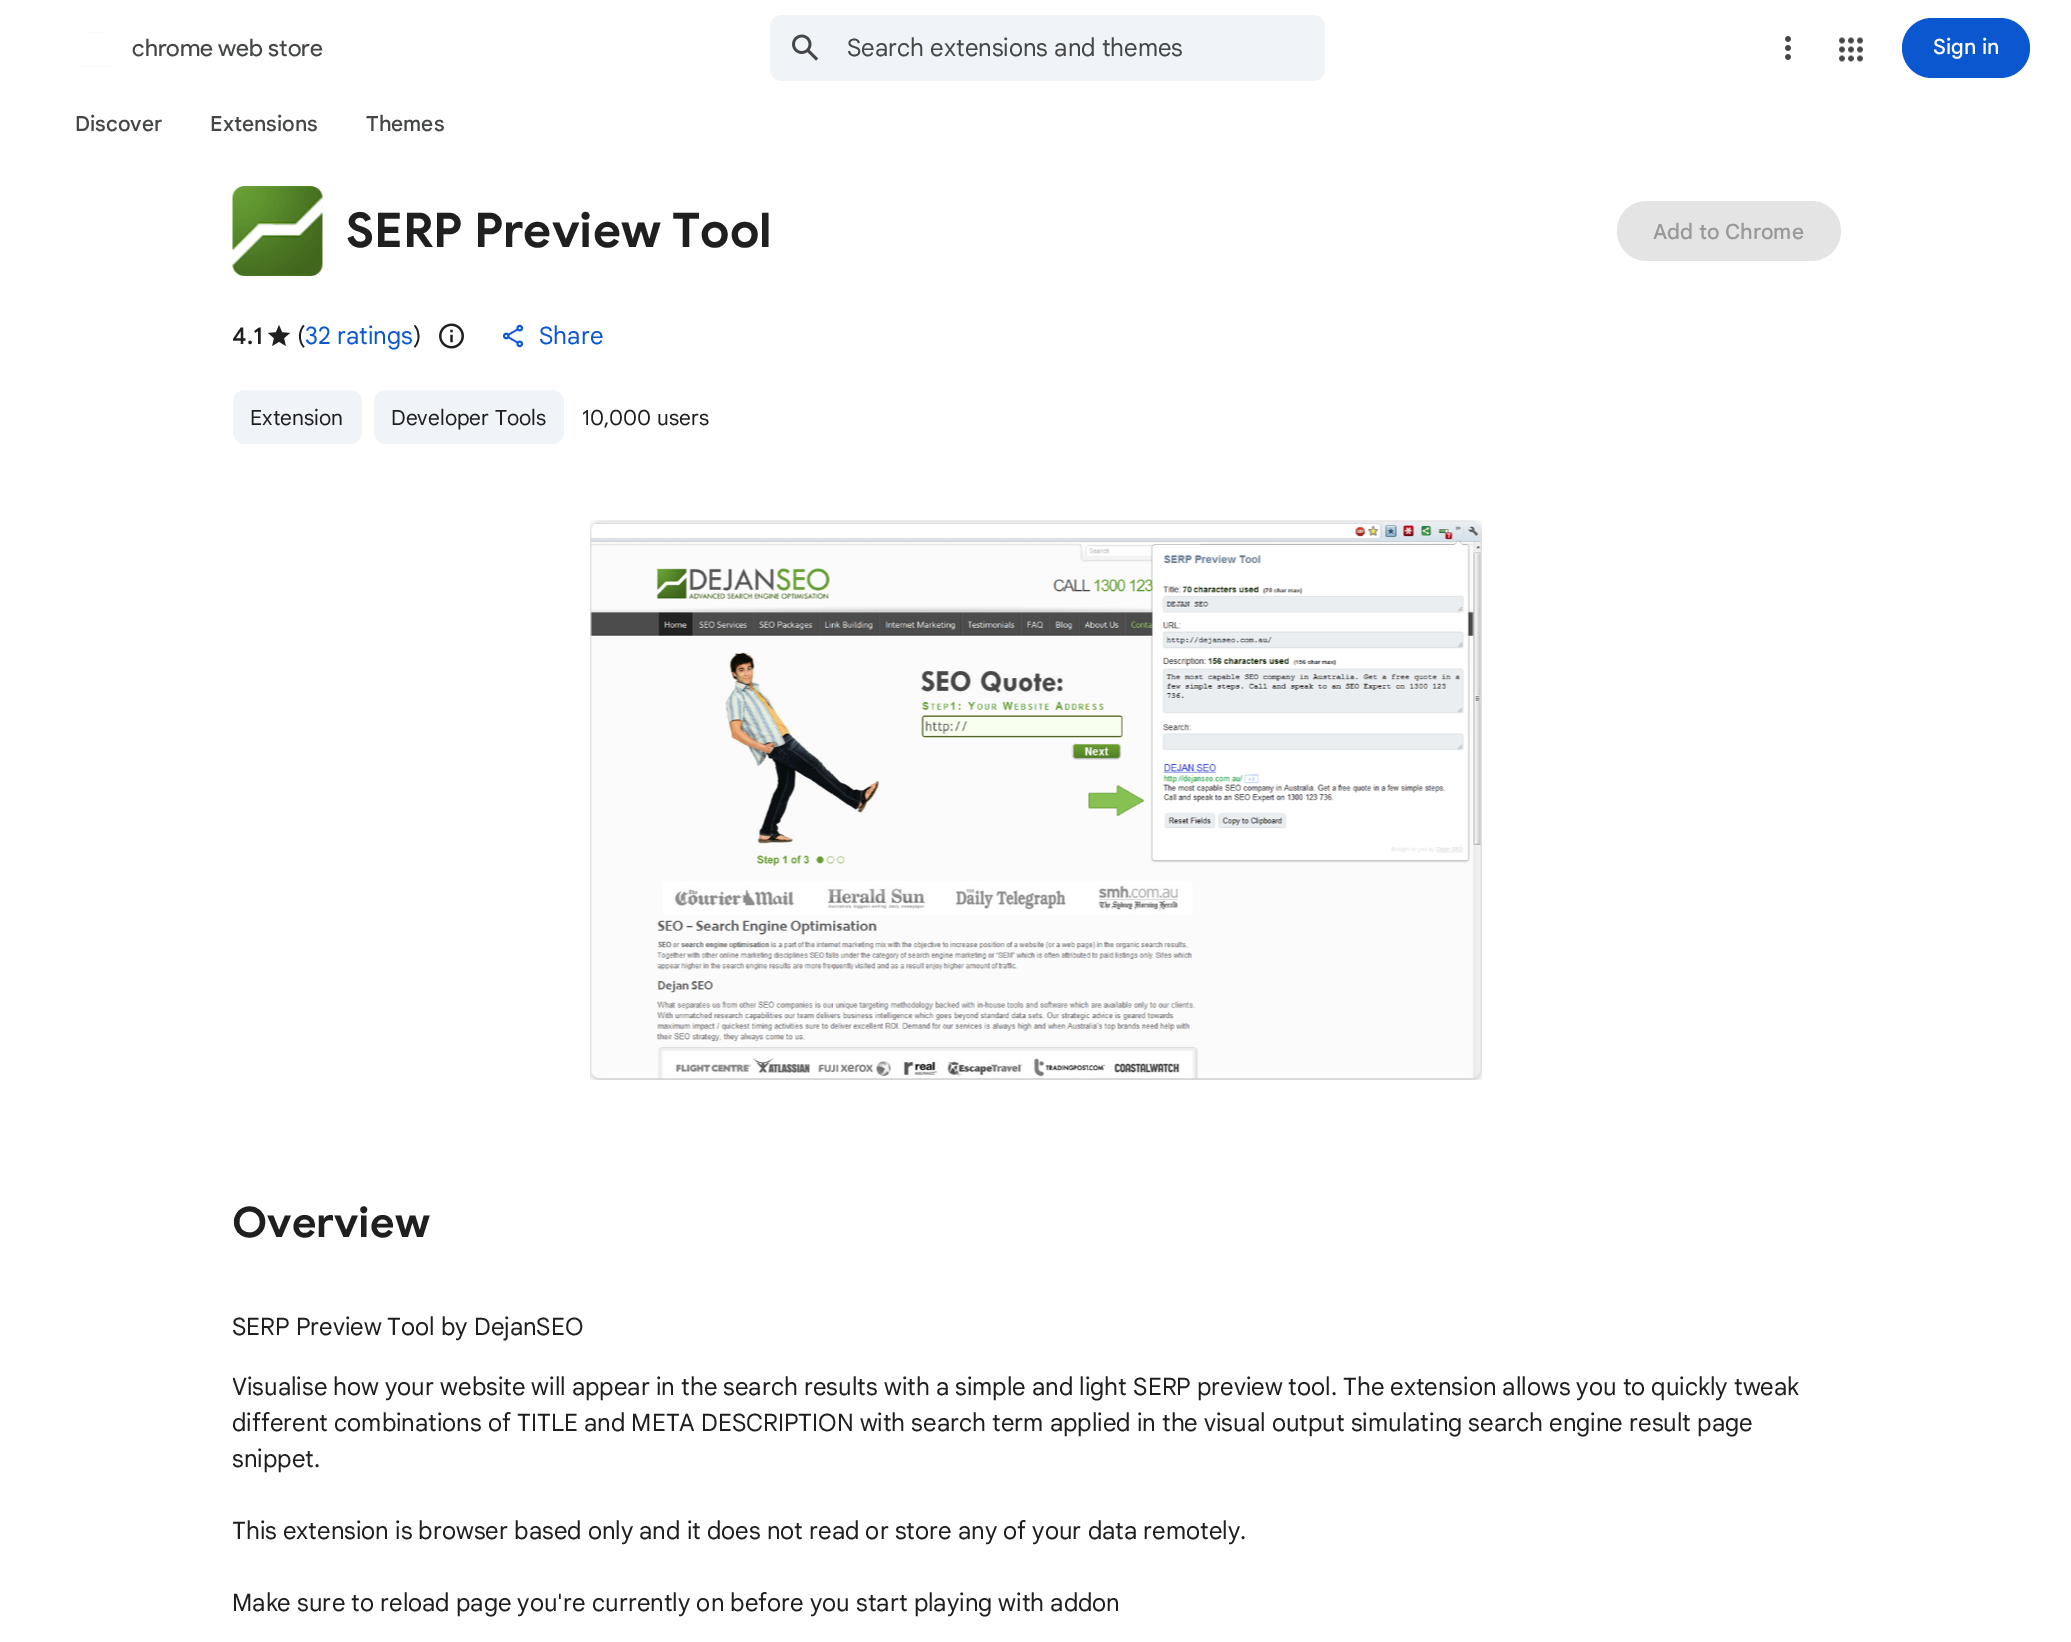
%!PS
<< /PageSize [2071 1642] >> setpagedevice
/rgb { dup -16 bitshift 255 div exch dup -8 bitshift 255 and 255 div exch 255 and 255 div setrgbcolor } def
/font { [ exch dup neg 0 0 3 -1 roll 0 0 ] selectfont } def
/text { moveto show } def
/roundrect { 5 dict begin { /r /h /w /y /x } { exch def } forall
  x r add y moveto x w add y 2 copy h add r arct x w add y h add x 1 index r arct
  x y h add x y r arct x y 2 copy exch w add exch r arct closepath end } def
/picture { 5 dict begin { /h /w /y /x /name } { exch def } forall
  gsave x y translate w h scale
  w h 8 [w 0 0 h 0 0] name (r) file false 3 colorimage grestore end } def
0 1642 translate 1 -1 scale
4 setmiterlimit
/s1 { /ProductSans-Regular 24 font 16#444746 rgb } def
/s2 { /GoogleSans-Regular 24 font 16#444746 rgb } def
/s3 { /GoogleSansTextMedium-Medium 21 font 16#FFFFFF rgb } def
/s4 { /GoogleSansTextMedium-Medium 21 font 16#444746 rgb } def
/s5 { /GoogleSans-Bold 48 font 16#1F1F1F rgb } def
/s6 { /GoogleSansTextMedium-Medium 21 font 16#999999 rgb } def
/s7 { /GoogleSans-Medium 24 font 16#1F1F1F rgb } def
/s8 { /GoogleSans-Regular 24 font 16#1F1F1F rgb } def
/s9 { /GoogleSans-Regular 24 font 16#0B57D0 rgb } def
/s10 { /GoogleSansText-Regular 24 font 16#0B57D0 rgb } def
/s11 { /GoogleSans-Regular 21 font 16#1F1F1F rgb } def
/s12 { /GoogleSans-Bold 42 font 16#1F1F1F rgb } def
16#FFFFFF rgb
0 0 2071 1642 rectfill
(pic1.raw) 75 32 42 35 picture
s1
(chrome web store) 132 56 text
16#F0F4F9 rgb
770 15 555 66 12 roundrect fill
(pic2.raw) 792 34 27 27 picture
s2
(Search extensions and themes) 847 56 text
(pic3.raw) 1785 36 6 24 picture
(pic4.raw) 1839 37 24 25 picture
16#0B57D0 rgb
1902 18 128 60 30 roundrect fill
s3
(Sign in) 1933 54 text
s4
(Discover) 75 131 text
(Extensions) 210 131 text
(Themes) 366 131 text
(pic5.raw) 232 186 91 90 picture
s5
(SERP Preview Tool) 346 247 text
16#E4E4E4 rgb
1617 201 224 60 30 roundrect fill
s6
(Add to Chrome) 1653 239 text
s7
(4.1) 232 344 text
(pic6.raw) 267 325 24 21 picture
s8
(\() 297 344 text
s9
(32 ratings) 305 344 text
s8
(\)) 413 344 text
(pic7.raw) 439 323 25 26 picture
(pic8.raw) 502 324 22 24 picture
s10
(Share) 539 344 text
16#F0F4F9 rgb
233 390 129 54 12 roundrect fill
s11
(Extension) 250 425 text
16#F0F4F9 rgb
374 390 190 54 12 roundrect fill
s11
(Developer Tools) 391 425 text
(10,000 users) 582 425 text
(pic9.raw) 590 520 892 560 picture
s12
(Overview) 232 1237 text
s8
(SERP Preview Tool by DejanSEO) 232 1335 text
gsave
233 1286 1608 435 rectclip
(Visualise how your website will appear in the search results with a simple and light SERP preview tool. The extension allows you to quickly tweak) 232 1395 text
(different combinations of TITLE and META DESCRIPTION with search term applied in the visual output simulating search engine result page) 232 1431 text
(snippet.) 232 1467 text
(This extension is browser based only and it does not read or store any of your data remotely.) 232 1539 text
grestore
(Make sure to reload page you're currently on before you start playing with addon) 232 1611 text
showpage
